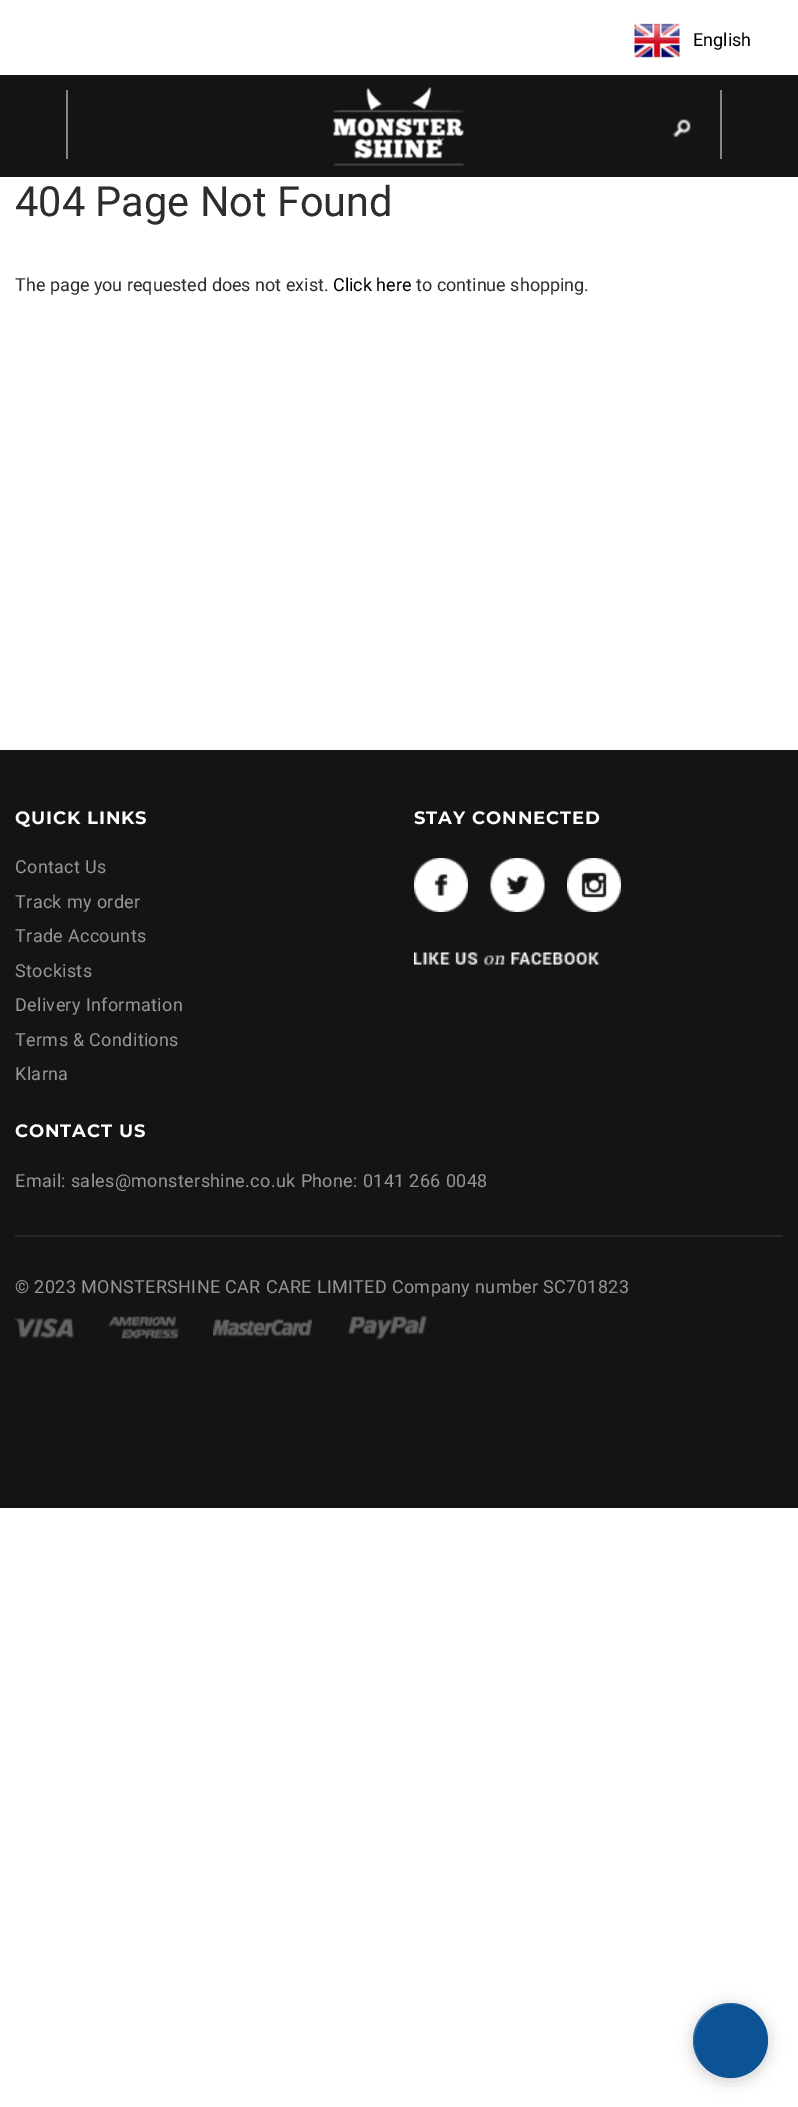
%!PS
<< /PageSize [798 2107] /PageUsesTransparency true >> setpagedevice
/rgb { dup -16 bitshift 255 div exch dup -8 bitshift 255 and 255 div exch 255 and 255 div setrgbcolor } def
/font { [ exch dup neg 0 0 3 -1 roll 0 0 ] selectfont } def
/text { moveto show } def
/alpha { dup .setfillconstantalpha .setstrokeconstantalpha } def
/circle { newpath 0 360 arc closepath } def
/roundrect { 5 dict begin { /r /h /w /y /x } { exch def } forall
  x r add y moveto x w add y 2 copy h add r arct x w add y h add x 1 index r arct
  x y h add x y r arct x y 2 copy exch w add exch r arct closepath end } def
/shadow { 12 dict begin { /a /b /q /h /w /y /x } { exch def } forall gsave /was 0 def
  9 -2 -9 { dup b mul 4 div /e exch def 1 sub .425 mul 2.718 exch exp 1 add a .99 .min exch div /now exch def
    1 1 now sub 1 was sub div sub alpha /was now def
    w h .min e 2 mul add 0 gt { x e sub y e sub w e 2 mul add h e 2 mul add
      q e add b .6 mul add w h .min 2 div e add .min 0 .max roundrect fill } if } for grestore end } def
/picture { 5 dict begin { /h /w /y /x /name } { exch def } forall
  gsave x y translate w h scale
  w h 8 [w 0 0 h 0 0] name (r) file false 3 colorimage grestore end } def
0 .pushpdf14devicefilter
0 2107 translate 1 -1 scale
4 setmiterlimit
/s1 { /Roboto-Regular 18 font 16#000000 rgb } def
/s2 { /Roboto-Regular 41.5 font 16#2D2D2D rgb } def
/s3 { /Roboto-Regular 18 font 16#2D2D2D rgb } def
16#FFFFFF rgb
0 0 798 2107 rectfill
(pic1.raw) 634 23 46 35 picture
s1
(English) 693 46 text
16#141414 rgb
0 75 798 102 rectfill
16#868686 rgb
66 90 2 69 rectfill
(pic2.raw) 332 87 132 79 picture
(pic3.raw) 672 119 19 19 picture
720 90 2 69 rectfill
s2
(404 Page Not Found) 15 216 text
s3
(The page you requested does not exist.) 15 291 text
s1
(Click here) 333 291 text
s3
(to continue shopping.) 416 291 text
16#141414 rgb
0 750 798 758 rectfill
/Montserrat-Bold 18 font
16#FFFFFF rgb
15 824 moveto 0.9 0 (QUICK LINKS) ashow
/Roboto-Regular 18 font
16#969696 rgb
15 873 moveto 0.35 0 (Contact Us) ashow
15 908 moveto 0.35 0 (Track my order) ashow
15 942 moveto 0.35 0 (Trade Accounts) ashow
15 977 moveto 0.35 0 (Stockists) ashow
15 1011 moveto 0.35 0 (Delivery Information) ashow
15 1046 moveto 0.35 0 (Terms & Conditions) ashow
15 1080 moveto 0.35 0 (Klarna) ashow
/Montserrat-Bold 18 font
16#FFFFFF rgb
414 824 moveto 0.9 0 (STAY CONNECTED) ashow
(pic4.raw) 414 858 54 54 picture
(pic5.raw) 490 858 55 54 picture
(pic6.raw) 567 858 54 54 picture
(pic7.raw) 414 952 186 14 picture
15 1137 moveto 0.9 0 (CONTACT US) ashow
/Roboto-Regular 18 font
16#969696 rgb
15 1187 moveto 0.35 0 (Email: sales@monstershine.co.uk Phone: 0141 266 0048) ashow
16#282828 rgb
15 1235 768 2 rectfill
16#969696 rgb
15 1293 moveto 0.35 0 (© 2023 MONSTERSHINE CAR CARE LIMITED Company number SC701823) ashow
(pic8.raw) 15 1318 59 21 picture
(pic9.raw) 108 1316 71 23 picture
(pic10.raw) 213 1318 99 19 picture
(pic11.raw) 348 1315 79 25 picture
16#808080 rgb
693 2006 75 75 37.5 8 0.4 shadow
16#0B5394 rgb
730.5 2040.5 37.5 circle fill
0.15 alpha
16#FFFFFF rgb
732 2004 moveto 739 2004 745 2006 751 2009 curveto 734 1998 711 2003 699 2020 curveto 689 2036 692 2058 707 2070 curveto 681 2047 697 2004 732 2004 curveto closepath fill
.poppdf14devicefilter showpage
